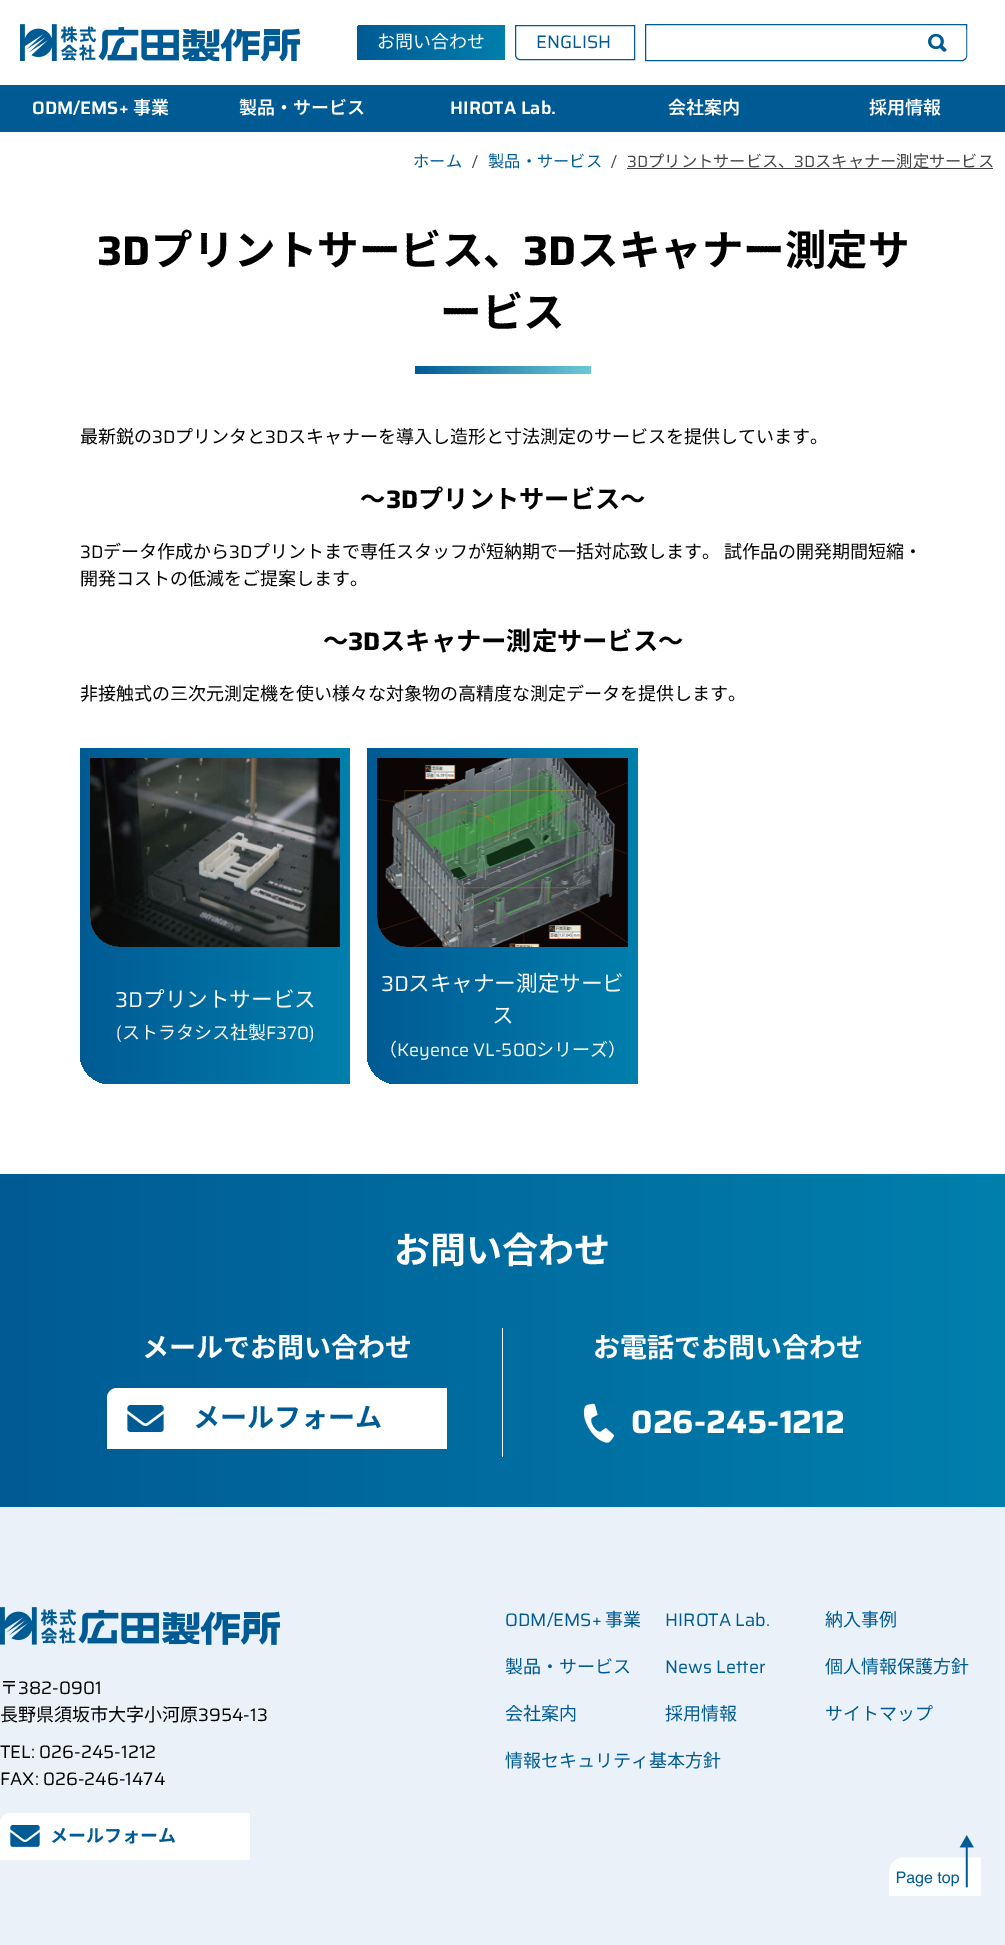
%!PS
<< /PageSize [1005 1945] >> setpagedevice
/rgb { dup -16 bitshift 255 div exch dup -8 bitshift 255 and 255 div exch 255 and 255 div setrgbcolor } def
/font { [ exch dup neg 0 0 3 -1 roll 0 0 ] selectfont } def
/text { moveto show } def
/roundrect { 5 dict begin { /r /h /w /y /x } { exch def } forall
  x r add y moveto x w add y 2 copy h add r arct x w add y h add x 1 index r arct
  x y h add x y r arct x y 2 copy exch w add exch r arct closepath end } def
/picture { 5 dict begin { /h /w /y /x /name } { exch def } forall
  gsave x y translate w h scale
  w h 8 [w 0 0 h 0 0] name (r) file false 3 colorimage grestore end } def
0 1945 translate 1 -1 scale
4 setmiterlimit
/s1 { /NotoSansJP-Regular 18 font 16#FFFFFF rgb } def
/s2 { /Saira-Regular 18 font 16#005B94 rgb } def
/s3 { /Saira-SemiBold 18 font 16#FFFFFF rgb } def
/s4 { /NotoSansJP-SemiBold 18 font 16#FFFFFF rgb } def
/s5 { /NotoSansJP-Regular 16.25 font 16#005B94 rgb } def
/s6 { /Saira-Regular 16.25 font 16#444444 rgb } def
/s7 { /NotoSansJP-Regular 16.25 font 16#444444 rgb } def
/s8 { /Saira-Bold 41.5 font 16#000000 rgb } def
/s9 { /NotoSansJP-Bold 41.5 font 16#000000 rgb } def
/s10 { /NotoSansJP-Regular 18 font 16#000000 rgb } def
/s11 { /Saira-Regular 18 font 16#000000 rgb } def
/s12 { /NotoSansJP-Bold 25.25 font 16#000000 rgb } def
/s13 { /Saira-Bold 25.25 font 16#000000 rgb } def
/s14 { /Saira-Regular 21.6 font 16#FFFFFF rgb } def
/s15 { /NotoSansJP-Regular 21.6 font 16#FFFFFF rgb } def
/s16 { /Saira-Regular 18 font 16#FFFFFF rgb } def
/s17 { /NotoSansJP-Bold 36 font 16#FFFFFF rgb } def
/s18 { /NotoSansJP-Bold 27 font 16#FFFFFF rgb } def
/s19 { /NotoSansJP-Bold 27 font 16#005B94 rgb } def
/s20 { /Saira-Bold 32.5 font 16#FFFFFF rgb } def
/s21 { /NotoSansJP-Bold 18 font 16#005B94 rgb } def
/s22 { /NotoSansJP-Regular 18 font 16#005B94 rgb } def
16#FFFFFF rgb
0 0 1005 1945 rectfill
(pic1.raw) 20 24 280 37 picture
gsave 362 25 moveto 505 25 lineto 505 60 lineto 357 60 lineto 357 30 lineto 357 27 359 25 362 25 curveto closepath clip newpath
<< /ShadingType 2 /ColorSpace /DeviceRGB /Coords [357 43 505 42] /Extend [true true] /Function << /FunctionType 2 /Domain [0 1] /C0 [0 0.357 0.58] /C1 [0 0.498 0.678] /N 1 >> >> shfill grestore
s1
(お問い合わせ) 377 48 text
16#005B94 rgb
515.5 25.5 moveto 634.5 25.5 lineto 634.5 59.5 lineto 520 59.5 lineto 517.5 59.5 515.5 57.5 515.5 55 curveto closepath stroke
s2
(ENGLISH) 536 48 text
645.5 24.5 moveto 966.5 24.5 lineto 966.5 56 lineto 966.5 58.5 964.5 60.5 962 60.5 curveto 645.5 60.5 lineto closepath stroke
(pic2.raw) 928 34 18 18 picture
(pic3.raw) 930 34 17 18 picture
16#FFFFFF rgb
910.5 28.5 55 29 1.5 roundrect stroke
16#005B94 rgb
0 85 1005 47 rectfill
s3
(ODM/EMS+) 32 114 text
s4
(事業) 133 114 text
(製品・サービス) 239 114 text
s3
(HIROTA Lab.) 450 114 text
s4
(会社案内) 668 114 text
(採用情報) 869 114 text
s5
(ホーム) 413 167 text
s6
(/) 472 167 text
s5
(製品・サービス) 488 167 text
s6
(/) 611 167 text
(3D) 627 167 text
627 168 366 1 rectfill
s7
(プリントサービス、) 648 167 text
s6
(3D) 794 167 text
s7
(スキャナー測定サービス) 815 167 text
s8
(3D) 97 265 text
s9
(プリントサービス、) 151 265 text
s8
(3D) 523 265 text
s9
(スキャナー測定サ) 577 265 text
(ービス) 440 327 text
gsave 415 366 moveto 591 366 lineto 591 374 lineto 415 374 lineto closepath clip newpath
<< /ShadingType 2 /ColorSpace /DeviceRGB /Coords [415 370 591 370] /Extend [true true] /Function << /FunctionType 2 /Domain [0 1] /C0 [0 0.357 0.58] /C1 [0.427 0.788 0.847] /N 1 >> >> shfill grestore
s10
(最新鋭の) 80 443 text
s11
(3D) 152 443 text
s10
(プリンタと) 175 443 text
s11
(3D) 265 443 text
s10
(スキャナーを導入し造形と寸法測定のサービスを提供しています。) 288 443 text
s12
(～) 360 508 text
s13
(3D) 386 508 text
s12
(プリントサービス～) 418 508 text
s11
(3D) 80 558 text
s10
(データ作成から) 103 558 text
s11
(3D) 229 558 text
s10
(プリントまで専任スタッフが短納期で一括対応致します。 試作品の開発期間短縮・) 252 558 text
(開発コストの低減をご提案します。) 80 585 text
s12
(～) 323 650 text
s13
(3D) 348 650 text
s12
(スキャナー測定サービス～) 380 650 text
s10
(非接触式の三次元測定機を使い様々な対象物の高精度な測定データを提供します。) 80 700 text
gsave 80 748 moveto 350 748 lineto 350 1084 lineto 110 1084 lineto 93.5 1084 80 1070.5 80 1054 curveto closepath clip newpath
<< /ShadingType 2 /ColorSpace /DeviceRGB /Coords [80 916 350 916] /Extend [true true] /Function << /FunctionType 2 /Domain [0 1] /C0 [0 0.357 0.58] /C1 [0 0.498 0.678] /N 1 >> >> shfill grestore
(pic4.raw) 90 917 30 30 picture
(pic5.raw) 90 758 250 189 picture
s14
(3D) 115 1007 text
s15
(プリントサービス) 143 1007 text
s16
(\() 116 1039 text
s1
(ストラタシス社製) 122 1039 text
s16
(F370\)) 266 1039 text
gsave 367 748 moveto 638 748 lineto 638 1084 lineto 397 1084 lineto 380.5 1084 367 1070.5 367 1054 curveto closepath clip newpath
<< /ShadingType 2 /ColorSpace /DeviceRGB /Coords [367 916 638 916] /Extend [true true] /Function << /FunctionType 2 /Domain [0 1] /C0 [0 0.357 0.58] /C1 [0 0.498 0.678] /N 1 >> >> shfill grestore
(pic4.raw) 377 917 30 30 picture
(pic6.raw) 377 758 251 189 picture
s14
(3D) 381 991 text
s15
(スキャナー測定サービ) 408 991 text
(ス) 492 1023 text
s1
(（) 379 1056 text
s16
(Keyence VL-500) 397 1056 text
s1
(シリーズ）) 536 1056 text
16#EBF1F8 rgb
0 1507 1005 438 rectfill
gsave 0 1174 moveto 1005 1174 lineto 1005 1507 lineto 0 1507 lineto closepath clip newpath
<< /ShadingType 2 /ColorSpace /DeviceRGB /Coords [0 1341 1005 1341] /Extend [true true] /Function << /FunctionType 2 /Domain [0 1] /C0 [0 0.357 0.58] /C1 [0 0.498 0.678] /N 1 >> >> shfill grestore
s17
(お問い合わせ) 394 1263 text
502 1328 1 129 rectfill
s18
(メールでお問い合わせ) 142 1357 text
117 1388 moveto 447 1388 lineto 447 1449 lineto 107 1449 lineto 107 1398 lineto 107 1392.5 111.5 1388 117 1388 curveto closepath fill
(pic7.raw) 127 1405 37 27 picture
s19
(メールフォーム) 193 1427 text
s18
(お電話でお問い合わせ) 593 1357 text
(pic8.raw) 583 1403 31 40 picture
s20
(026-245-1212) 631 1433 text
(pic9.raw) 0 1607 280 38 picture
s10
(〒) 0 1694 text
s11
(382-0901) 18 1694 text
s10
(長野県須坂市大字小河原) 0 1721 text
s11
(3954-13) 198 1721 text
(TEL: 026-245-1212) 0 1758 text
(FAX: 026-246-1474) 0 1785 text
16#FFFFFF rgb
10 1813 moveto 250 1813 lineto 250 1860 lineto 0 1860 lineto 0 1823 lineto 0 1817.5 4.5 1813 10 1813 curveto closepath fill
(pic10.raw) 10 1825 30 22 picture
s21
(メールフォーム) 50 1842 text
s2
(ODM/EMS+) 505 1626 text
s22
(事業) 605 1626 text
s2
(HIROTA Lab.) 665 1626 text
s22
(納入事例) 825 1626 text
(製品・サービス) 505 1673 text
s2
(News Letter) 665 1673 text
s22
(個人情報保護方針) 825 1673 text
(会社案内) 505 1720 text
(採用情報) 665 1720 text
(サイトマップ) 825 1720 text
(情報セキュリティ基本方針) 505 1767 text
(pic11.raw) 889 1835 92 61 picture
showpage
